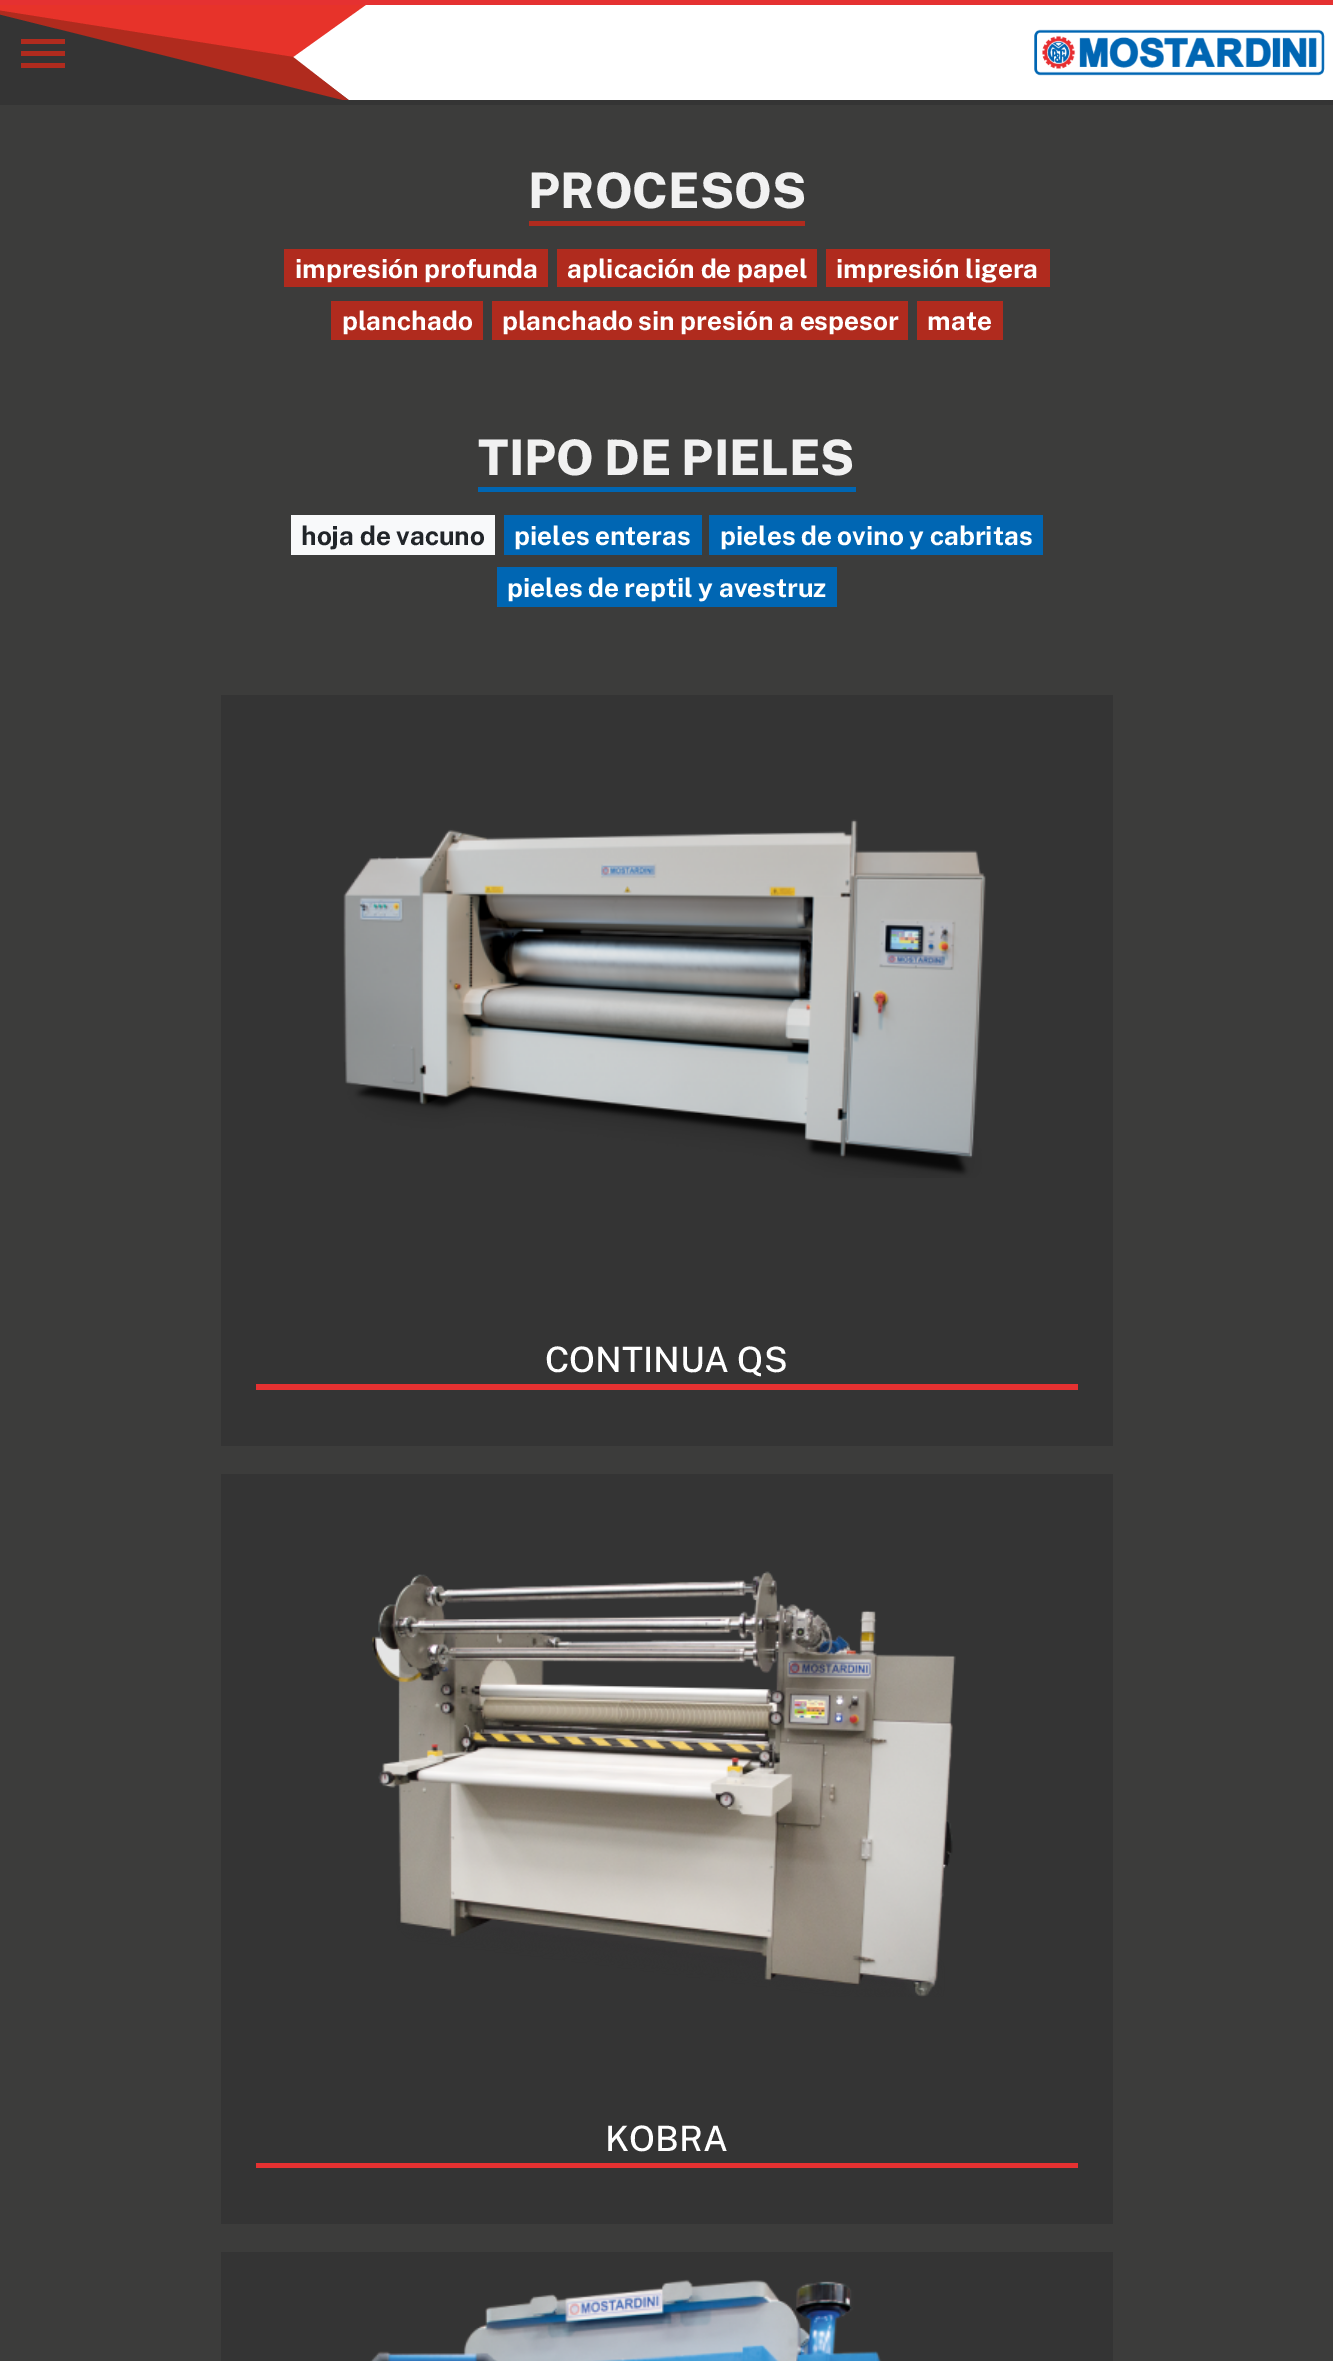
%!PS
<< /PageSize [1333 2361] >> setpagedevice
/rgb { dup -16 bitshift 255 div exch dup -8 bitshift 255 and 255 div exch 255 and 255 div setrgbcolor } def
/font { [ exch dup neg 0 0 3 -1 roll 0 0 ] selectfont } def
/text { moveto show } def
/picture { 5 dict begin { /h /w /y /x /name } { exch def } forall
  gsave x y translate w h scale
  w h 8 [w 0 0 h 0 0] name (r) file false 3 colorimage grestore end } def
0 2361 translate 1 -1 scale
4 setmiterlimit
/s1 { /PublicSans-ExtraBold 49 font 16#F1F1F1 rgb } def
/s2 { /PublicSans-Bold 26.25 font 16#FFFFFF rgb } def
/s3 { /PublicSans-Bold 26.25 font 16#212529 rgb } def
/s4 { /PublicSans-Medium 35 font 16#FFFFFF rgb } def
16#FFFFFF rgb
0 0 1333 2361 rectfill
16#343434 rgb
-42 4 moveto -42 102 lineto 351 102 lineto 221 4 lineto closepath fill
16#E7332A rgb
-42 4 moveto 286 58 lineto 293 57 lineto 367 4 lineto closepath fill
16#B02B1E rgb
-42 4 moveto 351 102 lineto 293 57 lineto closepath fill
16#E53131 rgb
0 0 1333 5 rectfill
16#343434 rgb
0 100 1333 5 rectfill
16#B02B1E rgb
21 39 44 5 rectfill
21 51 44 5 rectfill
21 63 44 5 rectfill
(pic1.raw) 1034 29 291 47 picture
16#3C3C3B rgb
0 105 1333 2256 rectfill
16#B02B1E rgb
529 221 276 5 rectfill
s1
(PROCESOS) 528 208 text
16#B02B1E rgb
284 249 264 38 rectfill
s2
(impresión profunda) 295 278 text
16#B02B1E rgb
557 249 260 38 rectfill
s2
(aplicación de papel) 567 278 text
16#B02B1E rgb
826 249 224 38 rectfill
s2
(impresión ligera) 836 278 text
16#B02B1E rgb
331 301 152 39 rectfill
s2
(planchado) 342 330 text
16#B02B1E rgb
492 301 416 39 rectfill
s2
(planchado sin presión a espesor) 502 330 text
16#B02B1E rgb
917 301 86 39 rectfill
s2
(mate) 927 330 text
16#0066B3 rgb
478 487 378 5 rectfill
s1
(TIPO DE PIELES) 478 475 text
16#F8F9FA rgb
291 515 204 40 rectfill
s3
(hoja de vacuno) 301 545 text
16#0066B3 rgb
504 515 198 40 rectfill
s2
(pieles enteras) 514 545 text
16#0066B3 rgb
709 515 334 40 rectfill
s2
(pieles de ovino y cabritas) 720 545 text
16#0066B3 rgb
497 567 340 40 rectfill
s2
(pieles de reptil y avestruz) 507 597 text
16#343434 rgb
221 695 892 751 rectfill
(pic2.raw) 343 819 643 359 picture
16#E53131 rgb
256 1384 822 6 rectfill
s4
(CONTINUA QS) 545 1372 text
16#343434 rgb
221 1474 892 750 rectfill
(pic3.raw) 372 1571 584 426 picture
16#E53131 rgb
256 2163 822 5 rectfill
s4
(KOBRA) 605 2151 text
16#343434 rgb
221 2252 892 109 rectfill
(pic4.raw) 370 2279 512 82 picture
showpage
